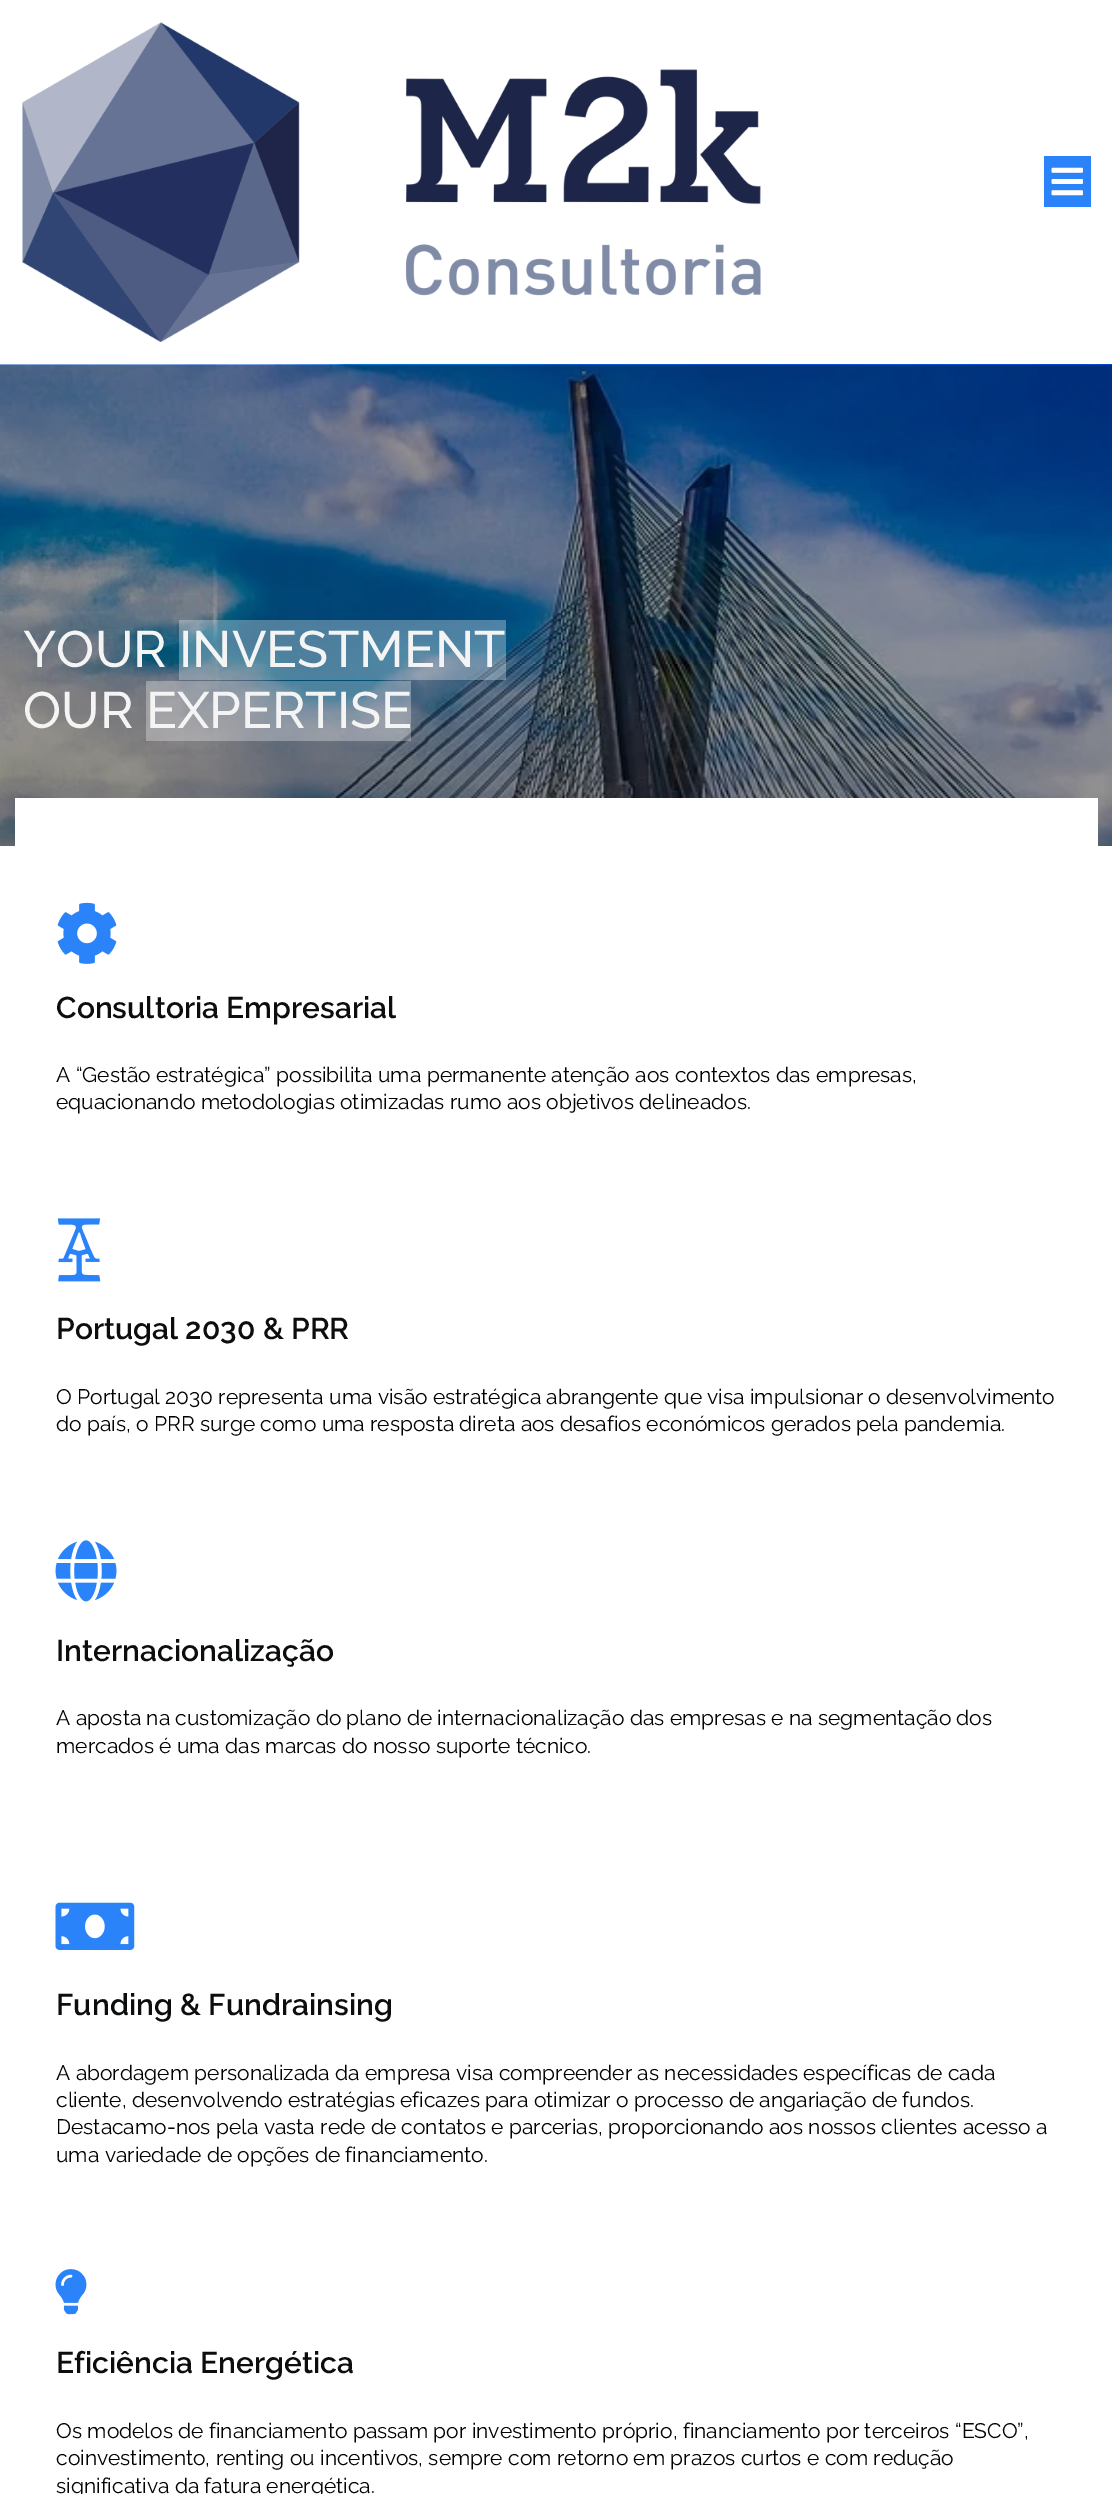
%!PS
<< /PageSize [1112 2494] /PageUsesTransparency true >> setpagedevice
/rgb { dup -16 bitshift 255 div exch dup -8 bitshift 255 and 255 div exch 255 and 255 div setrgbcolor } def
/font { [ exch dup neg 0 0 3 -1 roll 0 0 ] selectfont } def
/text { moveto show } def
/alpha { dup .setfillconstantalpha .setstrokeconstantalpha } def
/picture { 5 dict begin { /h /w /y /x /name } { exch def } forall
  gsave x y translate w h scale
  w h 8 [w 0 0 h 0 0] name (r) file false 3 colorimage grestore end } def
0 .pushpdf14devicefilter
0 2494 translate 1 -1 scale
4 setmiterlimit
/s1 { /Raleway-Medium 51 font 16#F3F4F3 rgb } def
/s2 { /Raleway-SemiBold 30 font 16#0C0D0D rgb } def
/s3 { /Raleway-Regular 21 font 16#000000 rgb } def
16#FFFFFF rgb
0 0 1112 2494 rectfill
(pic1.raw) 22 22 739 320 picture
16#2A83F9 rgb
1044 156 47 51 rectfill
(pic2.raw) 1051 167 32 29 picture
(pic3.raw) 0 364 1112 482 picture
s1
(YOUR) 23 667 text
0.3 alpha
16#FFFFFF rgb
179 620 327 60 rectfill
1 alpha
s1
(INVESTMENT) 179 667 text
(OUR) 23 728 text
0.3 alpha
16#FFFFFF rgb
146 681 265 60 rectfill
1 alpha
s1
(EXPERTISE) 146 728 text
16#FFFFFF rgb
15 798 1083 48 rectfill
(pic4.raw) 57 902 60 62 picture
s2
(Consultoria Empresarial) 56 1018 text
s3
(A “Gestão estratégica” possibilita uma permanente atenção aos contextos das empresas,) 56 1082 text
(equacionando metodologias otimizadas rumo aos objetivos delineados.) 56 1109 text
(pic5.raw) 57 1218 44 64 picture
s2
(Portugal 2030 & PRR) 56 1339 text
s3
(O Portugal 2030 representa uma visão estratégica abrangente que visa impulsionar o desenvolvimento) 56 1404 text
(do país, o PRR surge como uma resposta direta aos desafios económicos gerados pela pandemia.) 56 1431 text
(pic6.raw) 55 1540 62 62 picture
s2
(Internacionalização) 56 1661 text
s3
(A aposta na customização do plano de internacionalização das empresas e na segmentação dos) 56 1725 text
(mercados é uma das marcas do nosso suporte técnico.) 56 1753 text
(pic7.raw) 55 1902 80 48 picture
s2
(Funding & Fundrainsing) 56 2015 text
s3
(A abordagem personalizada da empresa visa compreender as necessidades específicas de cada) 56 2080 text
(cliente, desenvolvendo estratégias eficazes para otimizar o processo de angariação de fundos.) 56 2107 text
(Destacamo-nos pela vasta rede de contatos e parcerias, proporcionando aos nossos clientes acesso a) 56 2134 text
(uma variedade de opções de financiamento.) 56 2162 text
(pic8.raw) 55 2269 32 46 picture
s2
(Eficiência Energética) 56 2373 text
s3
(Os modelos de financiamento passam por investimento próprio, financiamento por terceiros “ESCO”,) 56 2438 text
(coinvestimento, renting ou incentivos, sempre com retorno em prazos curtos e com redução) 56 2465 text
(significativa da fatura energética.) 56 2493 text
.poppdf14devicefilter showpage
